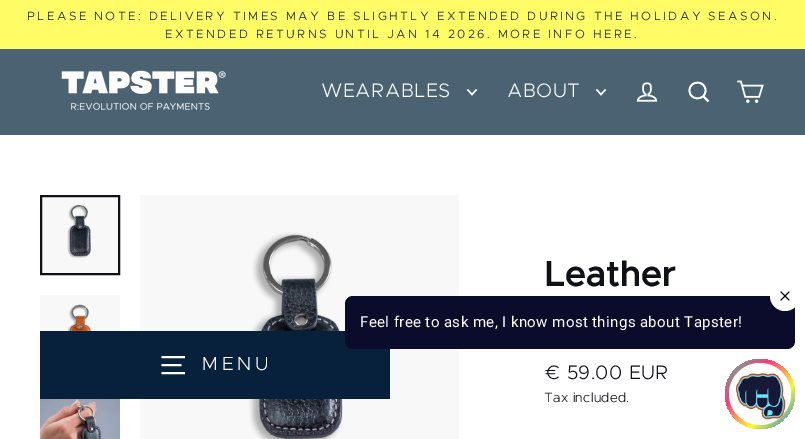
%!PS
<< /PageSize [805 439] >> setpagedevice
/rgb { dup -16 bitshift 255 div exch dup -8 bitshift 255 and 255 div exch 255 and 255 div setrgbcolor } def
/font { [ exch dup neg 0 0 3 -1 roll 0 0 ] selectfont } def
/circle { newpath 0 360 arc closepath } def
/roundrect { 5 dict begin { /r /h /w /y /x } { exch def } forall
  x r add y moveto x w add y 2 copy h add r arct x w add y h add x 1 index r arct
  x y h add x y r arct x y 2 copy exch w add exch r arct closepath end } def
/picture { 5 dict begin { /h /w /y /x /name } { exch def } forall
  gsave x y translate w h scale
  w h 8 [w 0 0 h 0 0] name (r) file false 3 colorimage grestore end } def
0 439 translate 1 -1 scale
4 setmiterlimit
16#FFFFFF rgb
0 0 805 439 rectfill
16#FFFC65 rgb
0 0 805 49 rectfill
/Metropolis-Light 12 font
16#07203B rgb
27 20 moveto 2.4 0 (PLEASE NOTE: DELIVERY TIMES MAY BE SLIGHTLY EXTENDED DURING THE HOLIDAY SEASON.) ashow
165 38 moveto 2.4 0 (EXTENDED RETURNS UNTIL JAN 14 2026. MORE INFO HERE.) ashow
16#4A6271 rgb
0 49 805 86 rectfill
(pic1.raw) 61 70 165 41 picture
/Metropolis-Light 19.5 font
16#FFFFFF rgb
321 97 moveto 0.4 0 (WEARABLES) ashow
1.4 setlinewidth
467.5 89.5 moveto 472 94.5 lineto 476.5 89.5 lineto stroke
507 97 moveto 0.4 0 (ABOUT) ashow
596.5 89.5 moveto 601 94.5 lineto 605.5 89.5 lineto stroke
(pic2.raw) 636 82 22 20 picture
1.8 setlinewidth
705.5 90.5 moveto 705.5 101 689.5 101 689.5 90.5 curveto 689.5 80 705.5 80 705.5 90.5 curveto closepath 708.5 101.5 moveto 703.5 96.5 lineto stroke
(pic3.raw) 737 80 27 23 picture
gsave 140 195 moveto 459 195 lineto 459 439 lineto 140 439 lineto closepath clip newpath
<< /ShadingType 2 /ColorSpace /DeviceRGB /Coords [132 241 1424 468] /Extend [true true] /Function << /FunctionType 3 /Domain [0 1] /Functions [<< /FunctionType 2 /Domain [0 1] /C0 [0.973 0.973 0.973] /C1 [0.973 0.973 0.973] /N 1 >> << /FunctionType 2 /Domain [0 1] /C0 [0.973 0.973 0.973] /C1 [0.941 0.941 0.941] /N 1 >> << /FunctionType 2 /Domain [0 1] /C0 [0.941 0.941 0.941] /C1 [0.973 0.973 0.973] /N 1 >> << /FunctionType 2 /Domain [0 1] /C0 [0.973 0.973 0.973] /C1 [0.973 0.973 0.973] /N 1 >>] /Bounds [0.4 0.63 0.79] /Encode [0 1 0 1 0 1 0 1] >> >> shfill grestore
(pic7.raw) 249 232 94 207 picture
16#07203B rgb
40 331 350 68 rectfill
16#FFFFFF rgb
1.9 setlinewidth
161.5 357 moveto 185 357 lineto 161.5 365 moveto 181.5 365 lineto 161.5 373 moveto 185 373 lineto stroke
/Metropolis-Light 19 font
202 370 moveto 4 0 (MENU) ashow
gsave 42 197 moveto 118 197 lineto 118 273 lineto 42 273 lineto closepath clip newpath
<< /ShadingType 2 /ColorSpace /DeviceRGB /Coords [38 206 362 264] /Extend [true true] /Function << /FunctionType 3 /Domain [0 1] /Functions [<< /FunctionType 2 /Domain [0 1] /C0 [0.973 0.973 0.973] /C1 [0.973 0.973 0.973] /N 1 >> << /FunctionType 2 /Domain [0 1] /C0 [0.973 0.973 0.973] /C1 [0.941 0.941 0.941] /N 1 >> << /FunctionType 2 /Domain [0 1] /C0 [0.941 0.941 0.941] /C1 [0.973 0.973 0.973] /N 1 >> << /FunctionType 2 /Domain [0 1] /C0 [0.973 0.973 0.973] /C1 [0.973 0.973 0.973] /N 1 >>] /Bounds [0.4 0.63 0.79] /Encode [0 1 0 1 0 1 0 1] >> >> shfill grestore
(pic4.raw) 67 204 24 54 picture
16#101116 rgb
2 setlinewidth
41 196 78 78 rectstroke
gsave 40 295 moveto 120 295 lineto 120 331 lineto 40 331 lineto closepath clip newpath
<< /ShadingType 2 /ColorSpace /DeviceRGB /Coords [38 306 362 364] /Extend [true true] /Function << /FunctionType 3 /Domain [0 1] /Functions [<< /FunctionType 2 /Domain [0 1] /C0 [0.973 0.973 0.973] /C1 [0.973 0.973 0.973] /N 1 >> << /FunctionType 2 /Domain [0 1] /C0 [0.973 0.973 0.973] /C1 [0.941 0.941 0.941] /N 1 >> << /FunctionType 2 /Domain [0 1] /C0 [0.941 0.941 0.941] /C1 [0.973 0.973 0.973] /N 1 >> << /FunctionType 2 /Domain [0 1] /C0 [0.973 0.973 0.973] /C1 [0.973 0.973 0.973] /N 1 >>] /Bounds [0.4 0.63 0.79] /Encode [0 1 0 1 0 1 0 1] >> >> shfill grestore
(pic5.raw) 67 304 25 27 picture
(pic6.raw) 40 399 80 40 picture
/Metropolis-Bold 35 font
544 286 moveto 1 0 (Leather) ashow
/Metropolis-Light 19.5 font
544 379 moveto 0.4 0 (€ 59.00 EUR) ashow
/Metropolis-Light 13.5 font
544 402 moveto 0.4 0 (Tax included.) ashow
16#0B0C2C rgb
345 296 450 53 8 roundrect fill
16#FFFFFF rgb
785 296 15 circle fill
(pic8.raw) 780 291 10 10 picture
/Roboto-Regular 15 font
360 327 moveto 0.4 0 (Feel free to ask me, I know most things about Tapster!) ashow
gsave 760 394 35 circle clip newpath
<< /ShadingType 2 /ColorSpace /DeviceRGB /Coords [725 359 795 429] /Extend [true true] /Function << /FunctionType 3 /Domain [0 1] /Functions [<< /FunctionType 2 /Domain [0 1] /C0 [0.212 0.827 0.6] /C1 [1 0.216 0.494] /N 1 >> << /FunctionType 2 /Domain [0 1] /C0 [1 0.216 0.494] /C1 [0.969 0.984 0.196] /N 1 >> << /FunctionType 2 /Domain [0 1] /C0 [0.969 0.984 0.196] /C1 [0.094 0.463 0.949] /N 1 >>] /Bounds [0.33 0.67] /Encode [0 1 0 1 0 1] >> >> shfill grestore
760 394 31 circle fill
(pic9.raw) 736 373 50 47 picture
showpage
